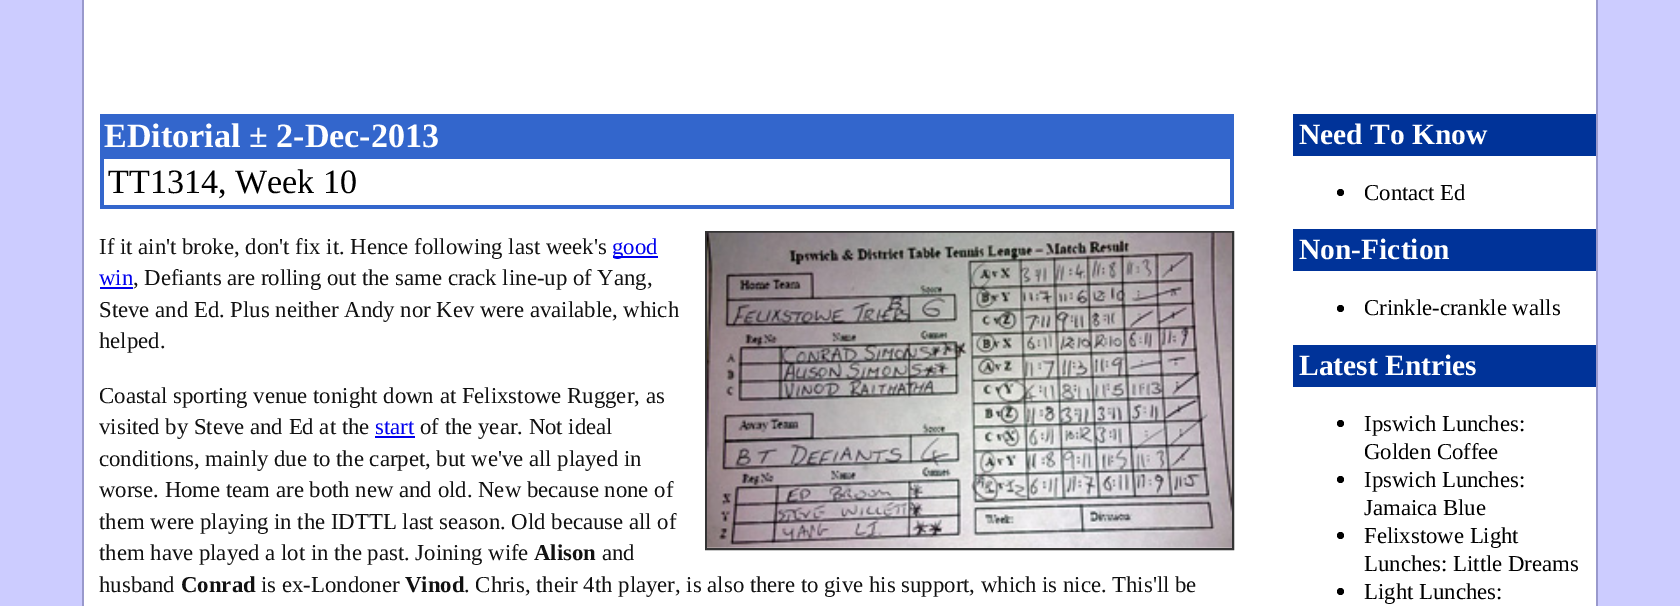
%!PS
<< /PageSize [1680 606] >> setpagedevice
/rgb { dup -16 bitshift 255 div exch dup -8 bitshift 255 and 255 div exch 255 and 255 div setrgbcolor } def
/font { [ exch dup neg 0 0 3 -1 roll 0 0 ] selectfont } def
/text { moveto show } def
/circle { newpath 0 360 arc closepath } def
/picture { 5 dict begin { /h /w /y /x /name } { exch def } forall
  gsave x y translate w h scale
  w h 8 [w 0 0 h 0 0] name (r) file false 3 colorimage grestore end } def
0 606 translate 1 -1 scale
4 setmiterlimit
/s1 { /LiberationSerif-Bold 34.1 font 16#FFFFFF rgb } def
/s2 { /LiberationSerif-Regular 34.1 font 16#000000 rgb } def
/s3 { /LiberationSerif-Regular 22.75 font 16#111111 rgb } def
/s4 { /LiberationSerif-Regular 22.75 font 16#0000EE rgb } def
/s5 { /LiberationSerif-Bold 22.75 font 16#111111 rgb } def
/s6 { /LiberationSerif-Bold 29.5 font 16#FFFFFF rgb } def
/s7 { /LiberationSerif-Regular 22.75 font 16#000000 rgb } def
16#CCCCFF rgb
0 0 1680 606 rectfill
16#FFFFFF rgb
84 0 1512 606 rectfill
16#9999CC rgb
1596 0 2 606 rectfill
82 0 2 606 rectfill
16#3366CC rgb
100 114 1134 45 rectfill
s1
(EDitorial ± 2-Dec-2013) 104 147 text
16#3366CC rgb
1230 159 4 49 rectfill
100 205 1134 4 rectfill
100 159 4 49 rectfill
s2
(TT1314, Week 10) 108 193 text
s3
(If it ain't broke, don't fix it. Hence following last week's) 99 254 text
16#0000EE rgb
613 256 45 2 rectfill
(good) 612 254 text
16#333333 rgb
2 setlinewidth
706 232 527 317 rectstroke
(pic1.raw) 707 232 525 316 picture
s4
(win) 99 285 text
100 287 33 2 rectfill
s3
(, Defiants are rolling out the same crack line-up of Yang,) 133 285 text
(Steve and Ed. Plus neither Andy nor Kev were available, which) 99 317 text
(helped.) 99 348 text
(Coastal sporting venue tonight down at Felixstowe Rugger, as) 99 403 text
(visited by Steve and Ed at the) 99 434 text
s4
(start) 375 434 text
375 436 40 2 rectfill
s3
(of the year. Not ideal) 420 434 text
(conditions, mainly due to the carpet, but we've all played in) 99 466 text
(worse. Home team are both new and old. New because none of) 99 497 text
(them were playing in the IDTTL last season. Old because all of) 99 529 text
(them have played a lot in the past. Joining wife) 99 560 text
s5
(Alison) 534 560 text
s3
(and) 602 560 text
(husband) 99 592 text
s5
(Conrad) 181 592 text
s3
(is ex-Londoner) 261 592 text
s5
(Vinod) 405 592 text
s3
(. Chris, their 4th player, is also there to give his support, which is nice. This'll be) 464 592 text
16#003399 rgb
1293 114 303 42 rectfill
s6
(Need To Know) 1299 144 text
16#000000 rgb
1340.5 192.5 3.5 circle fill
s7
(Contact Ed) 1364 200 text
16#003399 rgb
1293 229 303 42 rectfill
s6
(Non-Fiction) 1299 259 text
16#000000 rgb
1340.5 308.5 3.5 circle fill
s7
(Crinkle-crankle walls) 1364 315 text
16#003399 rgb
1293 345 303 42 rectfill
s6
(Latest Entries) 1299 375 text
16#000000 rgb
1340.5 423.5 3.5 circle fill
s7
(Ipswich Lunches:) 1364 431 text
(Golden Coffee) 1364 459 text
1340.5 479.5 3.5 circle fill
(Ipswich Lunches:) 1364 487 text
(Jamaica Blue) 1364 515 text
1340.5 535.5 3.5 circle fill
(Felixstowe Light) 1364 543 text
(Lunches: Little Dreams) 1364 571 text
1340.5 591.5 3.5 circle fill
(Light Lunches:) 1364 599 text
showpage
